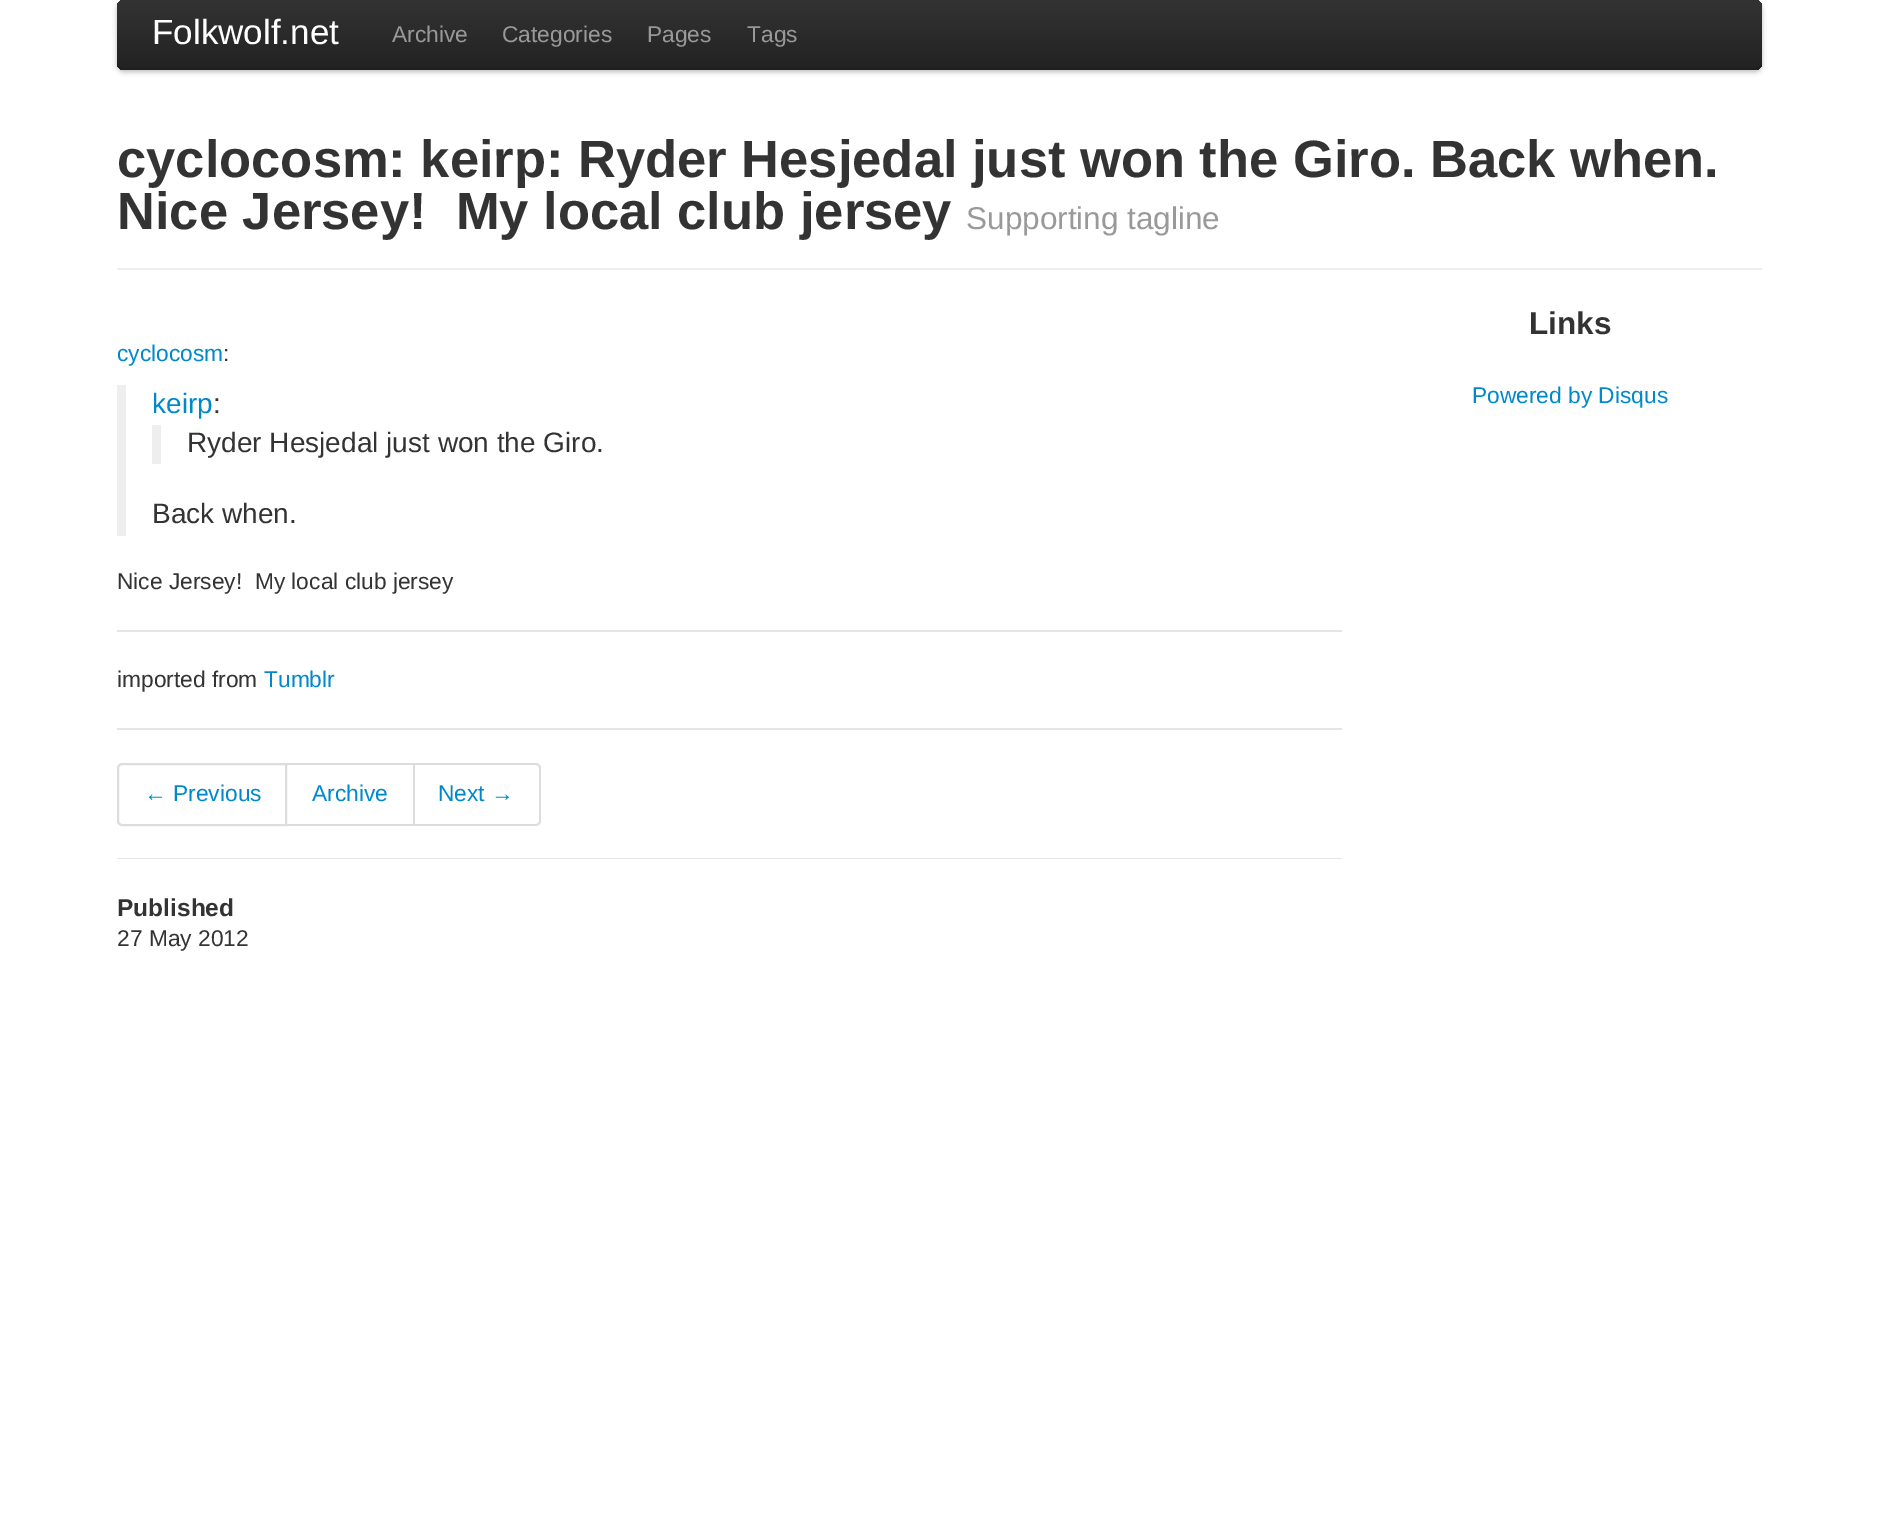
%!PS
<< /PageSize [1879 1527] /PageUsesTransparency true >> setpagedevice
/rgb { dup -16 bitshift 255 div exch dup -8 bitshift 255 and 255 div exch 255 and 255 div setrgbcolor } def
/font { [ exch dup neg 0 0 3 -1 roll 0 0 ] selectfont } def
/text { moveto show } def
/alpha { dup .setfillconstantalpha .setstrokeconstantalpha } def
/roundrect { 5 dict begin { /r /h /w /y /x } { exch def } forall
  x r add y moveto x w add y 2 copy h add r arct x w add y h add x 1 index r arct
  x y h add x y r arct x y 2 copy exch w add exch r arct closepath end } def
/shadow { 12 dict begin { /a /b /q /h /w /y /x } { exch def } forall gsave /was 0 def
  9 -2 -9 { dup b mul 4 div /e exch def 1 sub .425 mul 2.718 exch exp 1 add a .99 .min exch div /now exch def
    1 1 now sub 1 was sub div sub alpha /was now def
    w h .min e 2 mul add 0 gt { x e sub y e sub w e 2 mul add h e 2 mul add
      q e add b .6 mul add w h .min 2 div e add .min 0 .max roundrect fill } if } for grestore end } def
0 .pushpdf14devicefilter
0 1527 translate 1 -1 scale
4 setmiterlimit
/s1 { /LiberationSans-Regular 35 font 16#FFFFFF rgb } def
/s2 { /LiberationSans-Regular 22.75 font 16#999999 rgb } def
/s3 { /LiberationSans-Bold 52.5 font 16#333333 rgb } def
/s4 { /LiberationSans-Regular 31.5 font 16#999999 rgb } def
/s5 { /LiberationSans-Regular 22.75 font 16#0088CC rgb } def
/s6 { /LiberationSans-Regular 22.75 font 16#333333 rgb } def
/s7 { /LiberationSans-Regular 28 font 16#0088CC rgb } def
/s8 { /LiberationSans-Regular 28 font 16#333333 rgb } def
/s9 { /LiberationSans-Bold 31.5 font 16#333333 rgb } def
/s10 { /LiberationSans-Bold 24.5 font 16#333333 rgb } def
16#FFFFFF rgb
0 0 1879 1527 rectfill
16#000000 rgb
117 2 1645 70 7 2.5 0.25 shadow
gsave 117 0 1645 70 7 roundrect clip newpath
<< /ShadingType 2 /ColorSpace /DeviceRGB /Coords [940 0 940 70] /Extend [true true] /Function << /FunctionType 2 /Domain [0 1] /C0 [0.2 0.2 0.2] /C1 [0.133 0.133 0.133] /N 1 >> >> shfill grestore
0.1 alpha
117 61 moveto 117 65 119 70 124 70 curveto 1755 70 lineto 1760 70 1762 65 1762 61 curveto 1762 65 1759 68 1755 68 curveto 124 68 lineto 120 68 117 65 117 61 curveto closepath fill
1 alpha
s1
(Folkwolf.net) 152 44 text
s2
(Archive) 392 42 text
(Categories) 502 42 text
(Pages) 647 42 text
(Tags) 747 42 text
16#EEEEEE rgb
117 268 1645 2 rectfill
s3
(cyclocosm: keirp: Ryder Hesjedal just won the Giro. Back when.) 117 177 text
(Nice Jersey!  My local club jersey) 117 229 text
s4
(Supporting tagline) 966 229 text
s5
(cyclocosm) 117 361 text
s6
(:) 223 361 text
16#EEEEEE rgb
117 385 9 151 rectfill
s7
(keirp) 152 413 text
s8
(:) 213 413 text
16#EEEEEE rgb
152 425 9 39 rectfill
s8
(Ryder Hesjedal just won the Giro.) 187 452 text
(Back when.) 152 523 text
s6
(Nice Jersey!  My local club jersey) 117 589 text
16#E5E5E5 rgb
117 630 1225 2 rectfill
s6
(imported from) 117 687 text
s5
(Tumblr) 264 687 text
16#E5E5E5 rgb
117 728 1225 2 rectfill
16#DDDDDD rgb
2 setlinewidth
122 764 moveto 286 764 lineto 286 825 lineto 122 825 lineto 120 825 118 823 118 821 curveto 118 768 lineto 118 766 120 764 122 764 curveto closepath stroke
s5
(← Previous) 144 801 text
16#DDDDDD rgb
287 763 128 2 rectfill
413 763 2 63 rectfill
287 824 128 2 rectfill
s5
(Archive) 312 801 text
16#DDDDDD rgb
415 763 moveto 536 763 lineto 538 763 541 765 541 768 curveto 541 821 lineto 541 824 538 826 536 826 curveto 415 826 lineto closepath 415 765 moveto 536 765 lineto 537 765 539 766 539 768 curveto 539 821 lineto 539 823 537 824 536 824 curveto 415 824 lineto closepath eofill
s5
(Next →) 438 801 text
16#E5E5E5 rgb
117 858 1225 1 rectfill
s9
(Links) 1529 334 text
s5
(Powered by Disqus) 1472 403 text
s10
(Published) 117 916 text
s6
(27 May 2012) 117 946 text
.poppdf14devicefilter showpage
